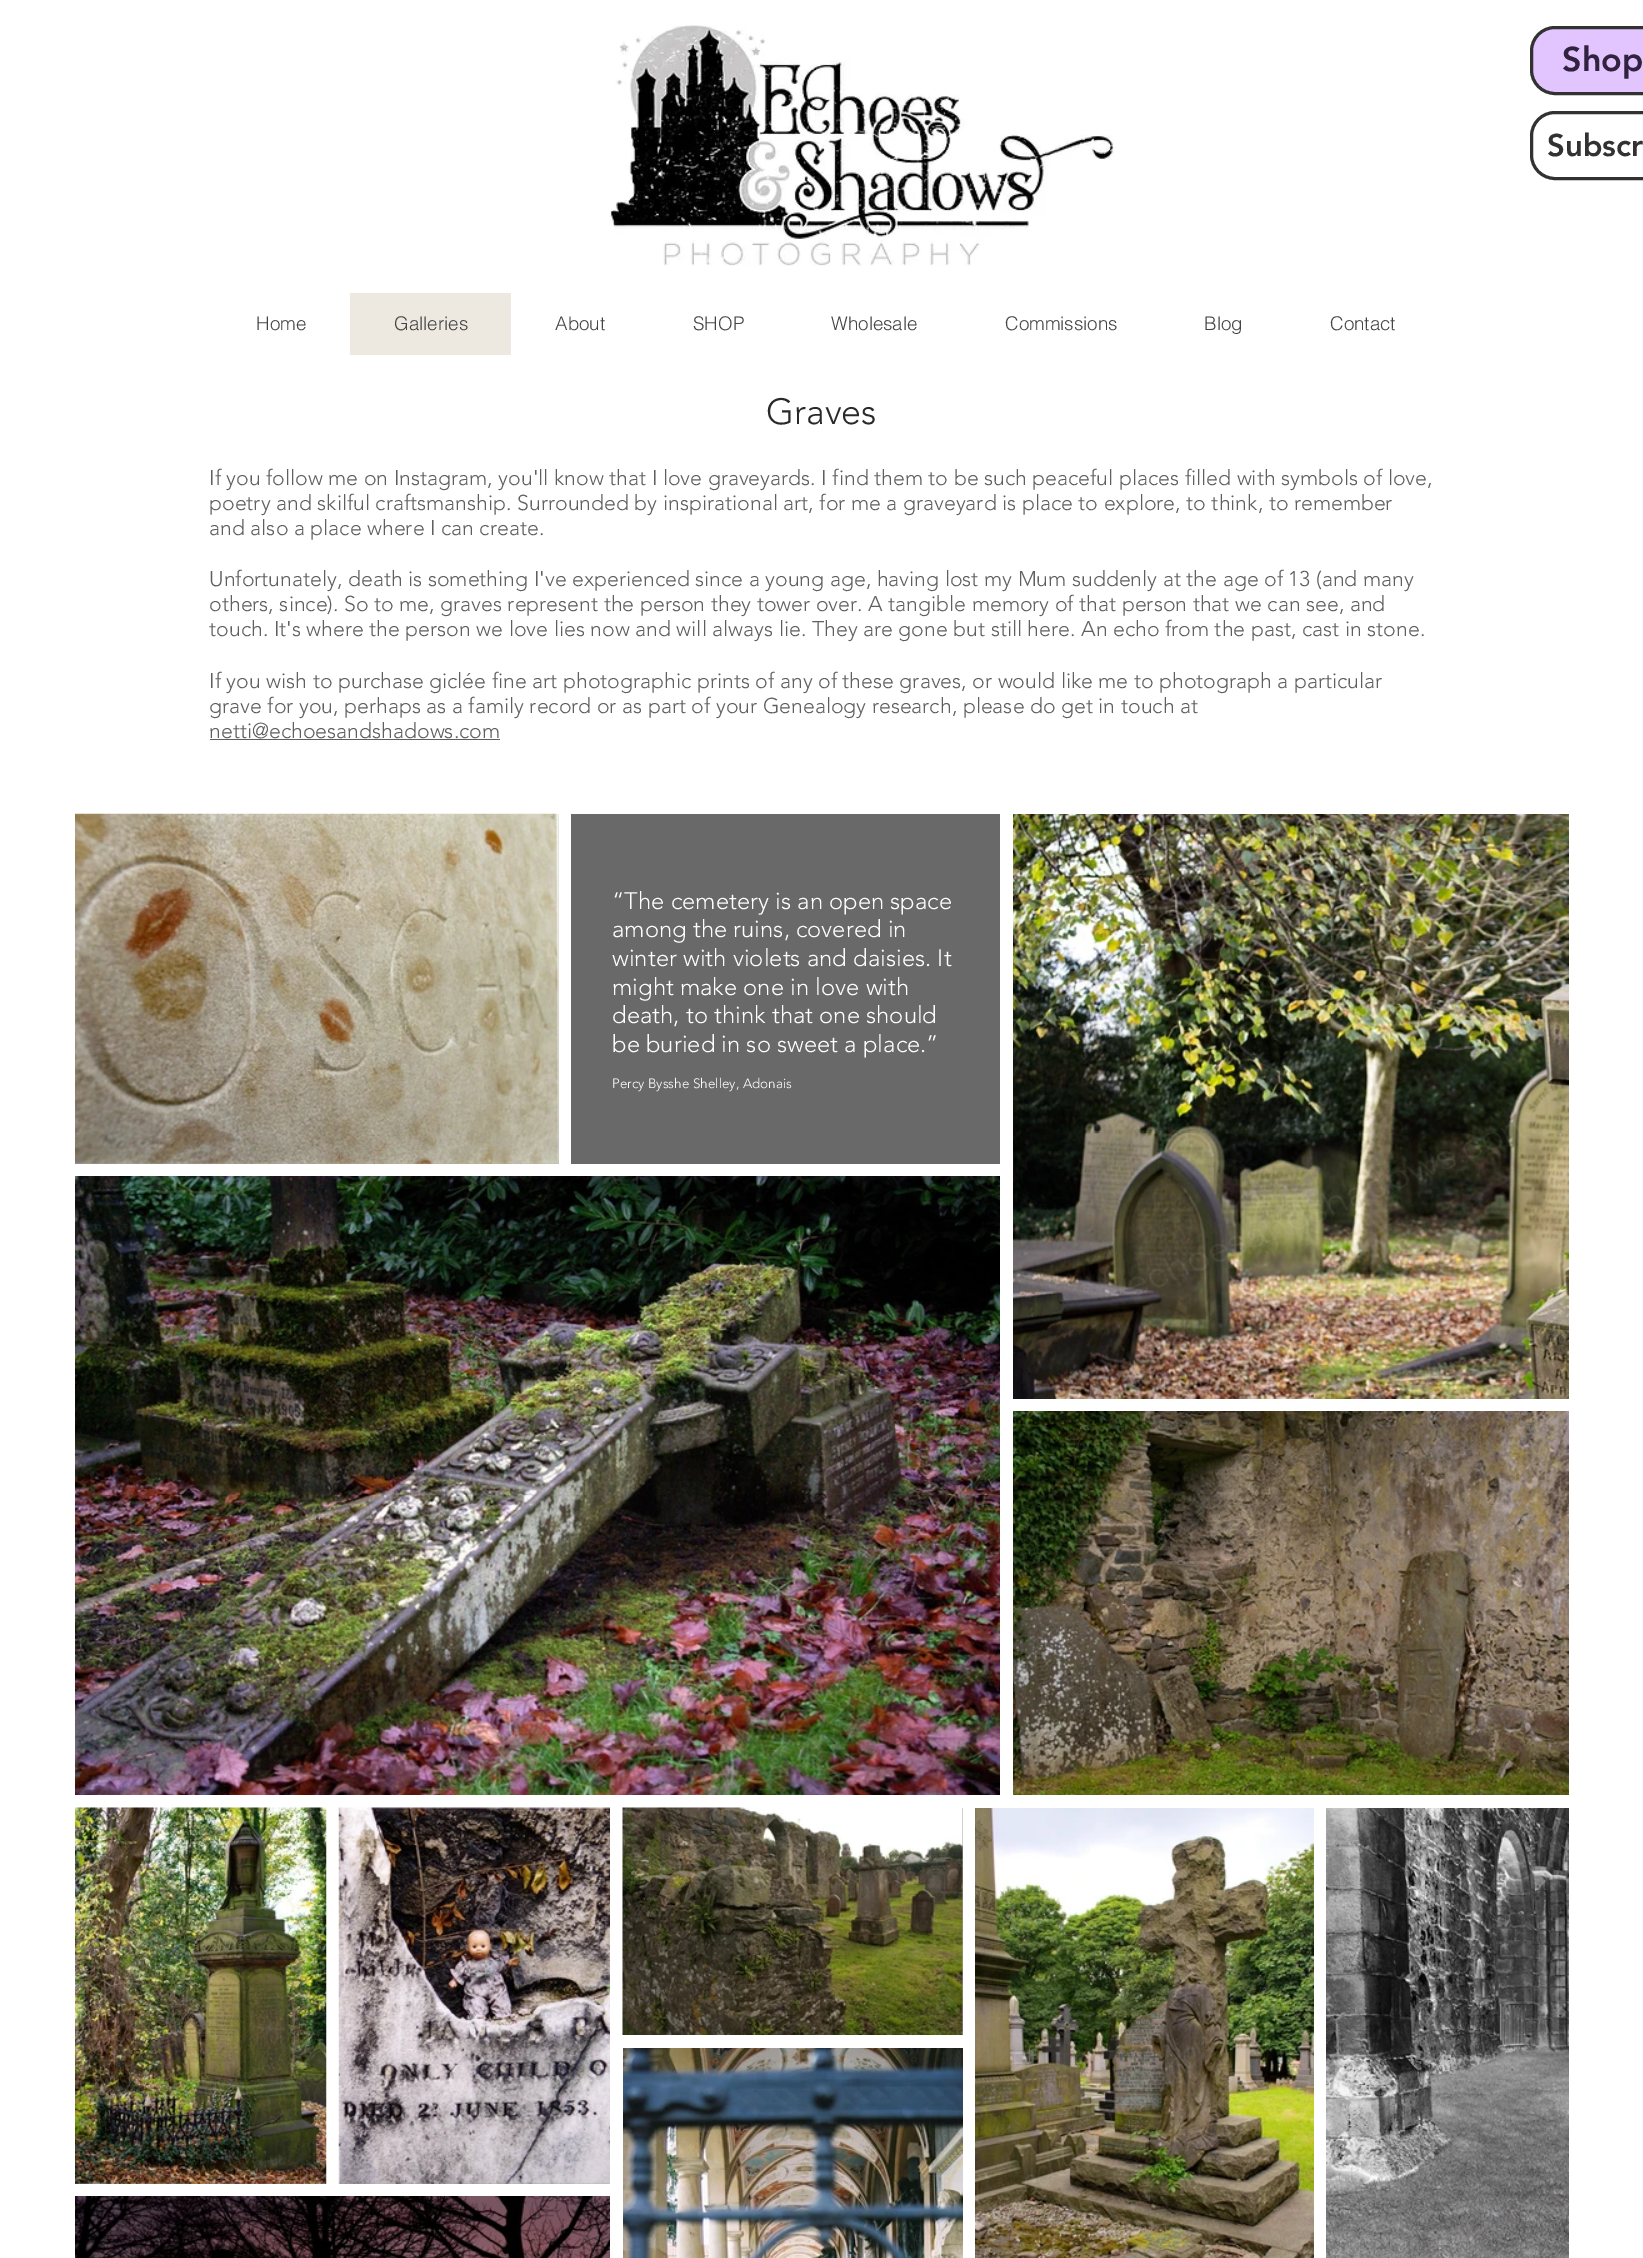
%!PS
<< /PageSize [1643 2258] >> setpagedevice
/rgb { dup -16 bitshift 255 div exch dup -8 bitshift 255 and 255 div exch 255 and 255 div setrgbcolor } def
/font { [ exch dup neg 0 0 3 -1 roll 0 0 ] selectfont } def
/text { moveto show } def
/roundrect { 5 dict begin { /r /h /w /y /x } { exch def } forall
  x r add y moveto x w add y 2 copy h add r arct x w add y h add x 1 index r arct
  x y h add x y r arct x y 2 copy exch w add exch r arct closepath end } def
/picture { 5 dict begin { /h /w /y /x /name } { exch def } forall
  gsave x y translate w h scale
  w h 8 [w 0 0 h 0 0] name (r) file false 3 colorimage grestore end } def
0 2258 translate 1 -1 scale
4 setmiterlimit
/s1 { /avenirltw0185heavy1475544-Black 34 font 16#312340 rgb } def
/s2 { /avenirltw0185heavy1475544-Black 31 font 16#323232 rgb } def
/s3 { /helvetica-Light 18.75 font 16#444444 rgb } def
/s4 { /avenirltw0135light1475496-Light 36 font 16#292929 rgb } def
/s5 { /avenirltw0135light1475496-Light 21.25 font 16#605E5E rgb } def
/s6 { /avenirltw0135light1475496-Light 23.8 font 16#FFFFFF rgb } def
/s7 { /avenirltw0135light1475496-Light 13.5 font 16#FFFFFF rgb } def
16#FFFFFF rgb
0 0 1643 2258 rectfill
(pic1.raw) 610 25 505 241 picture
16#E2C5FF rgb
1531.5 27.5 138 66 23.5 roundrect gsave fill grestore
16#323232 rgb
3 setlinewidth
stroke
s1
(Shop) 1562 71 text
16#323232 rgb
1531.5 112.5 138 66 23.5 roundrect stroke
s2
(Subscr) 1547 156 text
s3
(Home) 256 330 text
16#EDE9E1 rgb
350 293 161 62 rectfill
s3
(Galleries) 394 330 text
(About) 555 330 text
(SHOP) 693 330 text
(Wholesale) 831 330 text
(Commissions) 1005 330 text
(Blog) 1204 330 text
(Contact) 1330 330 text
s4
(Graves) 766 424 text
s5
(If you follow me on Instagram, you'll know that I love graveyards. I find them to be such peaceful places filled with symbols of love,) 209 485 text
(poetry and skilful craftsmanship. Surrounded by inspirational art, for me a graveyard is place to explore, to think, to remember) 209 510 text
(and also a place where I can create.) 209 535 text
(Unfortunately, death is something I've experienced since a young age, having lost my Mum suddenly at the age of 13 \(and many) 209 586 text
(others, since\). So to me, graves represent the person they tower over. A tangible memory of that person that we can see, and) 209 611 text
(touch. It's where the person we love lies now and will always lie. They are gone but still here. An echo from the past, cast in stone.) 209 636 text
(If you wish to purchase giclée fine art photographic prints of any of these graves, or would like me to photograph a particular) 209 688 text
(grave for you, perhaps as a family record or as part of your Genealogy research, please do get in touch at) 209 713 text
(netti@echoesandshadows.com) 209 738 text
210 739 290 1 rectfill
16#A0A09F rgb
75 814 484 350 rectfill
(pic2.raw) 75 813 484 351 picture
16#696969 rgb
571 814 429 350 rectfill
s6
(“The cemetery is an open space) 612 909 text
(among the ruins, covered in) 612 937 text
(winter with violets and daisies. It) 612 966 text
(might make one in love with) 612 995 text
(death, to think that one should) 612 1023 text
(be buried in so sweet a place.”) 612 1052 text
s7
(Percy Bysshe Shelley, Adonais) 612 1088 text
(pic3.raw) 1013 814 556 585 picture
(pic4.raw) 75 1176 925 619 picture
(pic5.raw) 1013 1411 556 384 picture
(pic6.raw) 75 1807 252 377 picture
(pic7.raw) 338 1807 272 377 picture
16#A0A09F rgb
962 1808 1 227 rectfill
(pic8.raw) 622 1807 341 228 picture
(pic9.raw) 975 1808 339 450 picture
(pic10.raw) 1326 1808 243 450 picture
(pic11.raw) 75 2196 535 62 picture
(pic12.raw) 623 2048 340 210 picture
showpage
